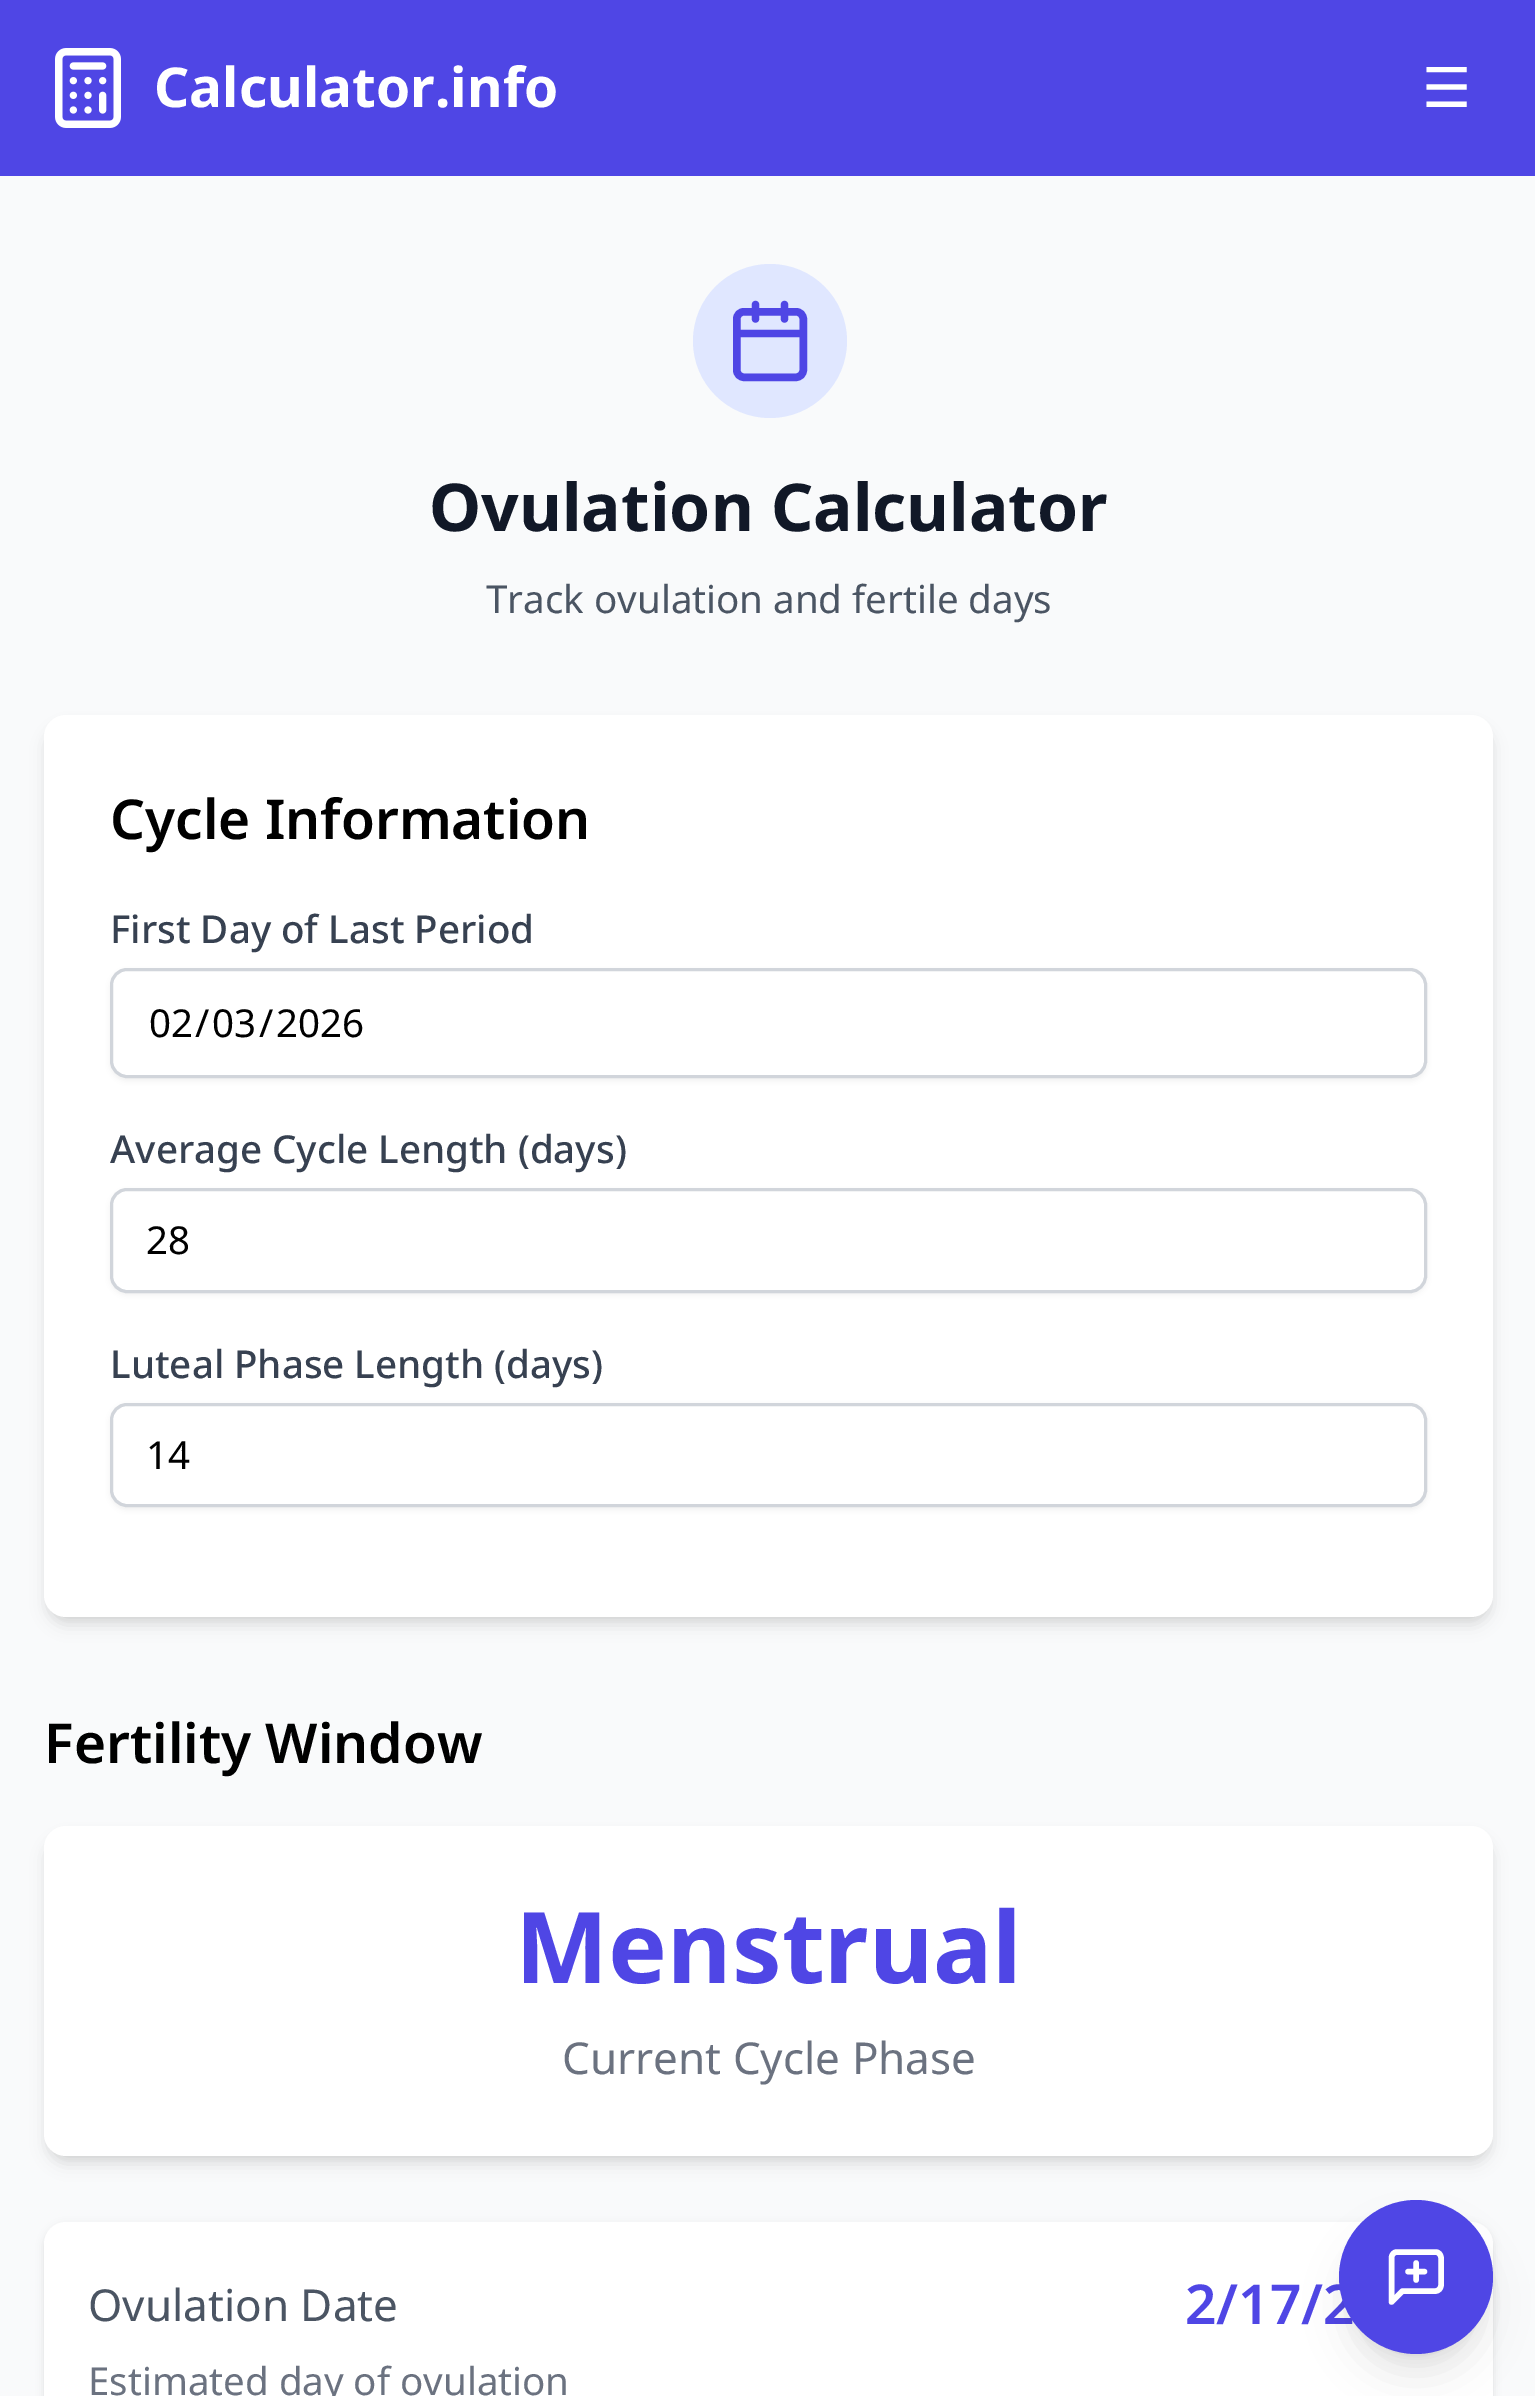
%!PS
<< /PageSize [1535 2396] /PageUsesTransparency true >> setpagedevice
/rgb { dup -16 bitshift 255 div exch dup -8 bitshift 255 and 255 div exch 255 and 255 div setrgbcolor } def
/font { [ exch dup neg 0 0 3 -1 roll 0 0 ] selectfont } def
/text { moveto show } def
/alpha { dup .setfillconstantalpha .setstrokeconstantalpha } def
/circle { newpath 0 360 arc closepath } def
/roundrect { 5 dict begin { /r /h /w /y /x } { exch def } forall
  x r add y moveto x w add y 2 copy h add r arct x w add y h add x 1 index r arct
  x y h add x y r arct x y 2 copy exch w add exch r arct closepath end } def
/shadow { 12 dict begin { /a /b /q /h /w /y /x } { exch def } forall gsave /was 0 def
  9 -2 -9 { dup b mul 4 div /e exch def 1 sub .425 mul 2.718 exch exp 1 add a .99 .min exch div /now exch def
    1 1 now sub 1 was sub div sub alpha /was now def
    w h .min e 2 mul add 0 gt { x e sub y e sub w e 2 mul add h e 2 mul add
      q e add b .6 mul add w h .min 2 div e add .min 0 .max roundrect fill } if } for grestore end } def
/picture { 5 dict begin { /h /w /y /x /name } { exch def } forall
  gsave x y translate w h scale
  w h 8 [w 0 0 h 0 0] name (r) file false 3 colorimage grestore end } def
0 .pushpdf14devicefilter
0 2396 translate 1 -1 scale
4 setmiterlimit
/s1 { /NotoSans-Bold 55 font 16#FFFFFF rgb } def
/s2 { /DejaVuSans-Regular 55 font 16#FFFFFF rgb } def
/s3 { /NotoSans-Bold 66 font 16#111827 rgb } def
/s4 { /NotoSans-Regular 38.5 font 16#4B5563 rgb } def
/s5 { /NotoSans-SemiBold 55 font 16#000000 rgb } def
/s6 { /NotoSans-Medium 38.5 font 16#374151 rgb } def
/s7 { /NotoSans-Regular 38.5 font 16#000000 rgb } def
/s8 { /NotoSans-Bold 99 font 16#4F46E5 rgb } def
/s9 { /NotoSans-Regular 44 font 16#6B7280 rgb } def
/s10 { /NotoSans-Regular 44 font 16#4B5563 rgb } def
/s11 { /NotoSans-SemiBold 55 font 16#4F46E5 rgb } def
/s12 { /NotoSans-Regular 38.5 font 16#6B7280 rgb } def
16#4F46E5 rgb
0 0 1535 2396 rectfill
(pic1.raw) 55 48 66 80 picture
s1
(Calculator.info) 154 107 text
s2
(☰) 1422 107 text
16#F9FAFB rgb
0 176 1535 2220 rectfill
16#E0E7FF rgb
770 341 77 circle fill
16#4F46E5 rgb
7.3 setlinewidth
1 setlinecap
1 setlinejoin
755.5 304.5 moveto 755.5 319 lineto 784.5 304.5 moveto 784.5 319 lineto stroke
7.5 setlinewidth
0 setlinecap
0 setlinejoin
736.75 311.75 66.5 65.5 7.25 roundrect stroke
7.3 setlinewidth
1 setlinecap
1 setlinejoin
737 333.5 moveto 803 333.5 lineto stroke
s3
(Ovulation Calculator) 429 531 text
s4
(Track ovulation and fertile days) 486 613 text
16#000000 rgb
50 726 1438 891 17 5.5 0.1 shadow
47 729 1444 896 19 8 0.1 shadow
16#FFFFFF rgb
44 715 1449 902 22 roundrect fill
s5
(Cycle Information) 110 839 text
s6
(First Day of Last Period) 110 943 text
16#000000 rgb
110 971 1317 110 17 3 0.05 shadow
16#FFFFFF rgb
111.5 969.5 1314 107 15.5 roundrect gsave fill grestore
16#D1D5DB rgb
3 setlinewidth
0 setlinecap
0 setlinejoin
stroke
s7
(02) 149 1037 text
(/) 195 1037 text
(03) 212 1037 text
(/) 259 1037 text
(2026) 276 1037 text
s6
(Average Cycle Length \(days\)) 110 1163 text
16#000000 rgb
110 1191 1317 104 17 3 0.05 shadow
16#FFFFFF rgb
111.5 1189.5 1314 102 15.5 roundrect gsave fill grestore
16#D1D5DB rgb
stroke
s7
(28) 146 1254 text
s6
(Luteal Phase Length \(days\)) 110 1378 text
16#000000 rgb
110 1405 1317 105 17 3 0.05 shadow
16#FFFFFF rgb
111.5 1404.5 1314 101 15.5 roundrect gsave fill grestore
16#D1D5DB rgb
stroke
s7
(14) 146 1469 text
s5
(Fertility Window) 44 1763 text
50 1837 1438 319 17 5.5 0.1 shadow
47 1840 1444 324 19 8 0.1 shadow
16#FFFFFF rgb
44 1826 1449 330 22 roundrect fill
s8
(Menstrual) 515 1983 text
s9
(Current Cycle Phase) 562 2074 text
16#000000 rgb
44 2225 1449 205 22 4 0.1 shadow
16#FFFFFF rgb
44 2222 1449 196 22 roundrect fill
s10
(Ovulation Date) 88 2321 text
s11
(2/17/2) 1185 2324 text
s12
(Estimated day of ovulation) 88 2395 text
16#000000 rgb
1350 2222 132 132 66 8 0.1 shadow
1348 2236 137 137 68.5 20.5 0.1 shadow
16#4F46E5 rgb
1416 2277 77 circle fill
16#FFFFFF rgb
5.5 setlinewidth
1 setlinecap
1 setlinejoin
1441 2285 moveto 1441 2288.5 1438.5 2291 1435.5 2291 curveto 1402.5 2291 lineto 1391.5 2302 lineto 1391.5 2258 lineto 1391.5 2254.5 1394 2252 1397 2252 curveto 1435.5 2252 lineto 1438.5 2252 1441 2254.5 1441 2258 curveto closepath 1416 2263 moveto 1416 2280 lineto 1408 2271.5 moveto 1424.5 2271.5 lineto stroke
.poppdf14devicefilter showpage
